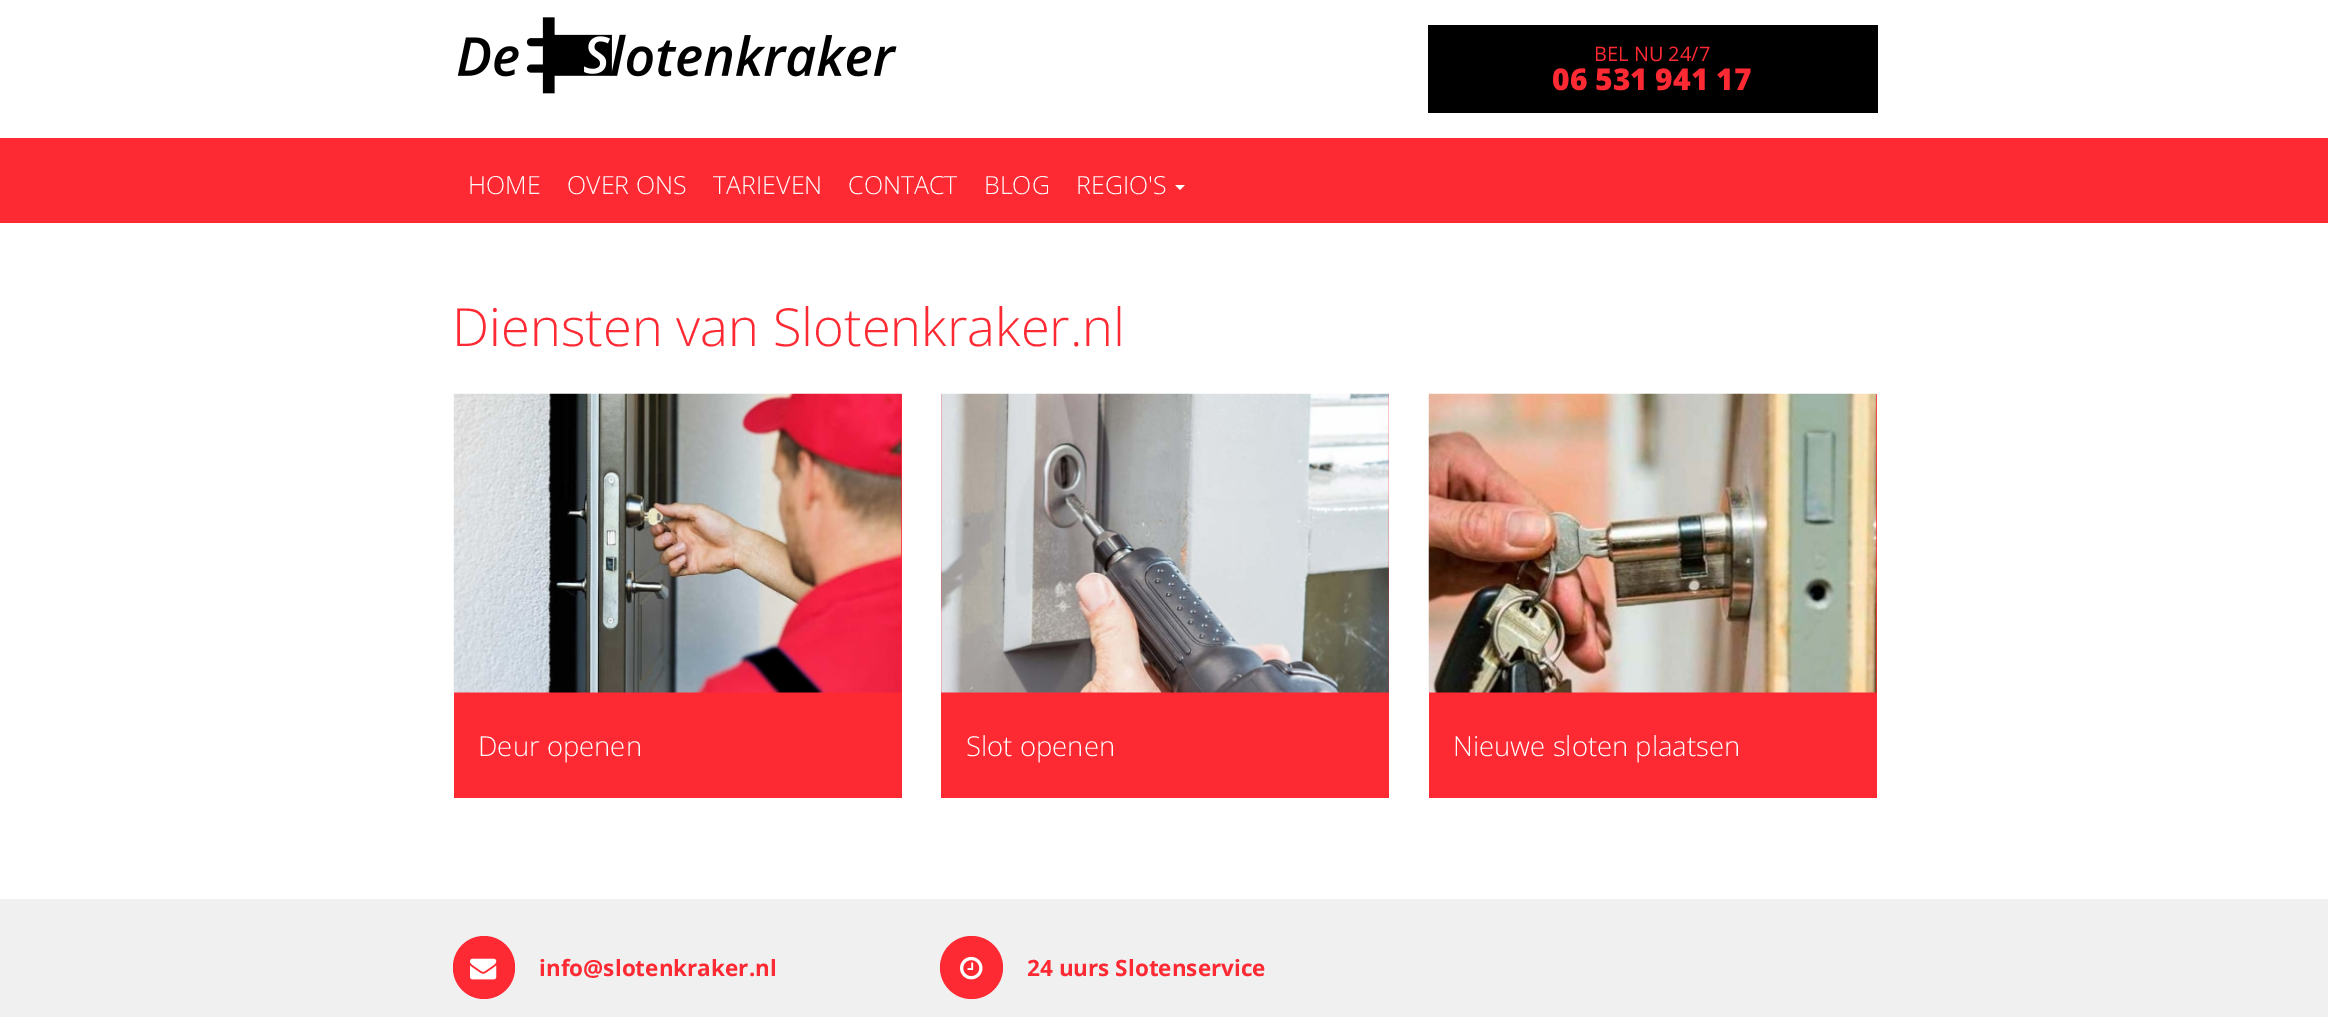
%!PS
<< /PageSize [2328 1017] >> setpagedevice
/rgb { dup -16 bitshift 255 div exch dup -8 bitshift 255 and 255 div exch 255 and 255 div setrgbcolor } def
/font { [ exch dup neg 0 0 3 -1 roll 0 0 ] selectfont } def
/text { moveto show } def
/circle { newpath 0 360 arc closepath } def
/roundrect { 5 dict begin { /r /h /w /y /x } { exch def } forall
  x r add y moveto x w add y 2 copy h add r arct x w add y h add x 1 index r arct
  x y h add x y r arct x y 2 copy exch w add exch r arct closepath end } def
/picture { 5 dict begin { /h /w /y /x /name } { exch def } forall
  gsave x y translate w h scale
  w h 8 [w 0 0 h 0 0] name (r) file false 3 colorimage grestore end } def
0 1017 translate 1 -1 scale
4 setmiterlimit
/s1 { /OpenSans-Regular 20 font 16#FD2A33 rgb } def
/s2 { /OpenSans-ExtraBold 30 font 16#FD2A33 rgb } def
/s3 { /OpenSans-Light 25 font 16#FFFFFF rgb } def
/s4 { /OpenSans-Light 52.5 font 16#FD2A33 rgb } def
/s5 { /OpenSans-Light 27.5 font 16#FFFFFF rgb } def
/s6 { /OpenSans-Bold 22.5 font 16#FD2A33 rgb } def
16#FFFFFF rgb
0 0 2328 1017 rectfill
(pic1.raw) 457 17 440 77 picture
16#000000 rgb
1428 25 450 88 rectfill
s1
(BEL NU 24/7) 1594 61 text
s2
(06 531 941 17) 1552 90 text
0 138 2328 85 rectfill
s3
(HOME) 468 194 text
(OVER ONS) 567 194 text
(TARIEVEN) 713 194 text
(CONTACT) 848 194 text
(BLOG) 984 194 text
(REGIO'S) 1076 194 text
1175 185 moveto 1185 185 lineto 1180 190 lineto closepath fill
s4
(Diensten van Slotenkraker.nl) 452 346 text
454 394 448 404 rectfill
(pic2.raw) 453 393 449 300 picture
s5
(Deur openen) 478 756 text
16#FD2A33 rgb
941 394 448 404 rectfill
(pic3.raw) 941 393 448 300 picture
s5
(Slot openen) 966 756 text
16#FD2A33 rgb
1429 394 448 404 rectfill
(pic4.raw) 1428 393 449 300 picture
s5
(Nieuwe sloten plaatsen) 1453 756 text
16#F0F0F0 rgb
0 899 2328 118 rectfill
16#FD2A33 rgb
453 936 62 63 31 roundrect fill
(pic5.raw) 470 958 27 22 picture
s6
(info@slotenkraker.nl) 539 976 text
971.5 967.5 31.5 circle fill
(pic6.raw) 960 956 23 24 picture
(24 uurs Slotenservice) 1027 976 text
showpage
